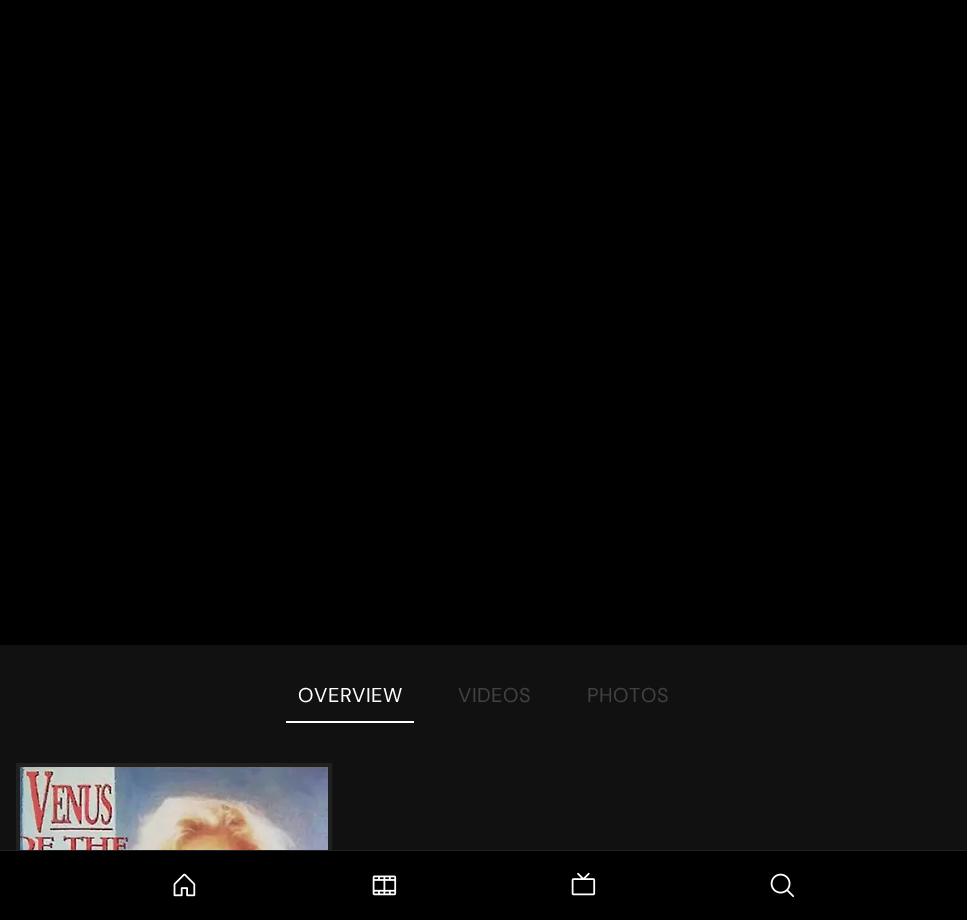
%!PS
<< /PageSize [967 920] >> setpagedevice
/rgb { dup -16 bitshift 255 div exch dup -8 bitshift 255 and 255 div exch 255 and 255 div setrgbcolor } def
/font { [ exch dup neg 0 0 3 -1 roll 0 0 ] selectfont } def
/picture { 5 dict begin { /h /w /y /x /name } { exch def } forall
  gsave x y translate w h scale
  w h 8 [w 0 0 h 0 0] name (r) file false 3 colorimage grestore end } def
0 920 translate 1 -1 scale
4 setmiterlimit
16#111111 rgb
0 0 967 920 rectfill
16#000000 rgb
0 0 967 645 rectfill
16#FFFFFF rgb
286 721 128 2 rectfill
/DMSans-Regular 20 font
298 702 moveto 0.5 0 (OVERVIEW) ashow
16#414141 rgb
458 702 moveto 0.5 0 (VIDEOS) ashow
587 702 moveto 0.5 0 (PHOTOS) ashow
16#000000 rgb
0 851 967 69 rectfill
16#1F2123 rgb
0 850 967 1 rectfill
gsave
0 0 967 850 rectclip
16#1F2021 rgb
4 setlinewidth
18 765 312 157 rectstroke
grestore
(pic1.raw) 20 767 308 83 picture
(pic2.raw) 173 873 23 24 picture
(pic3.raw) 372 875 25 21 picture
(pic4.raw) 571 872 25 24 picture
(pic5.raw) 770 873 25 24 picture
showpage
